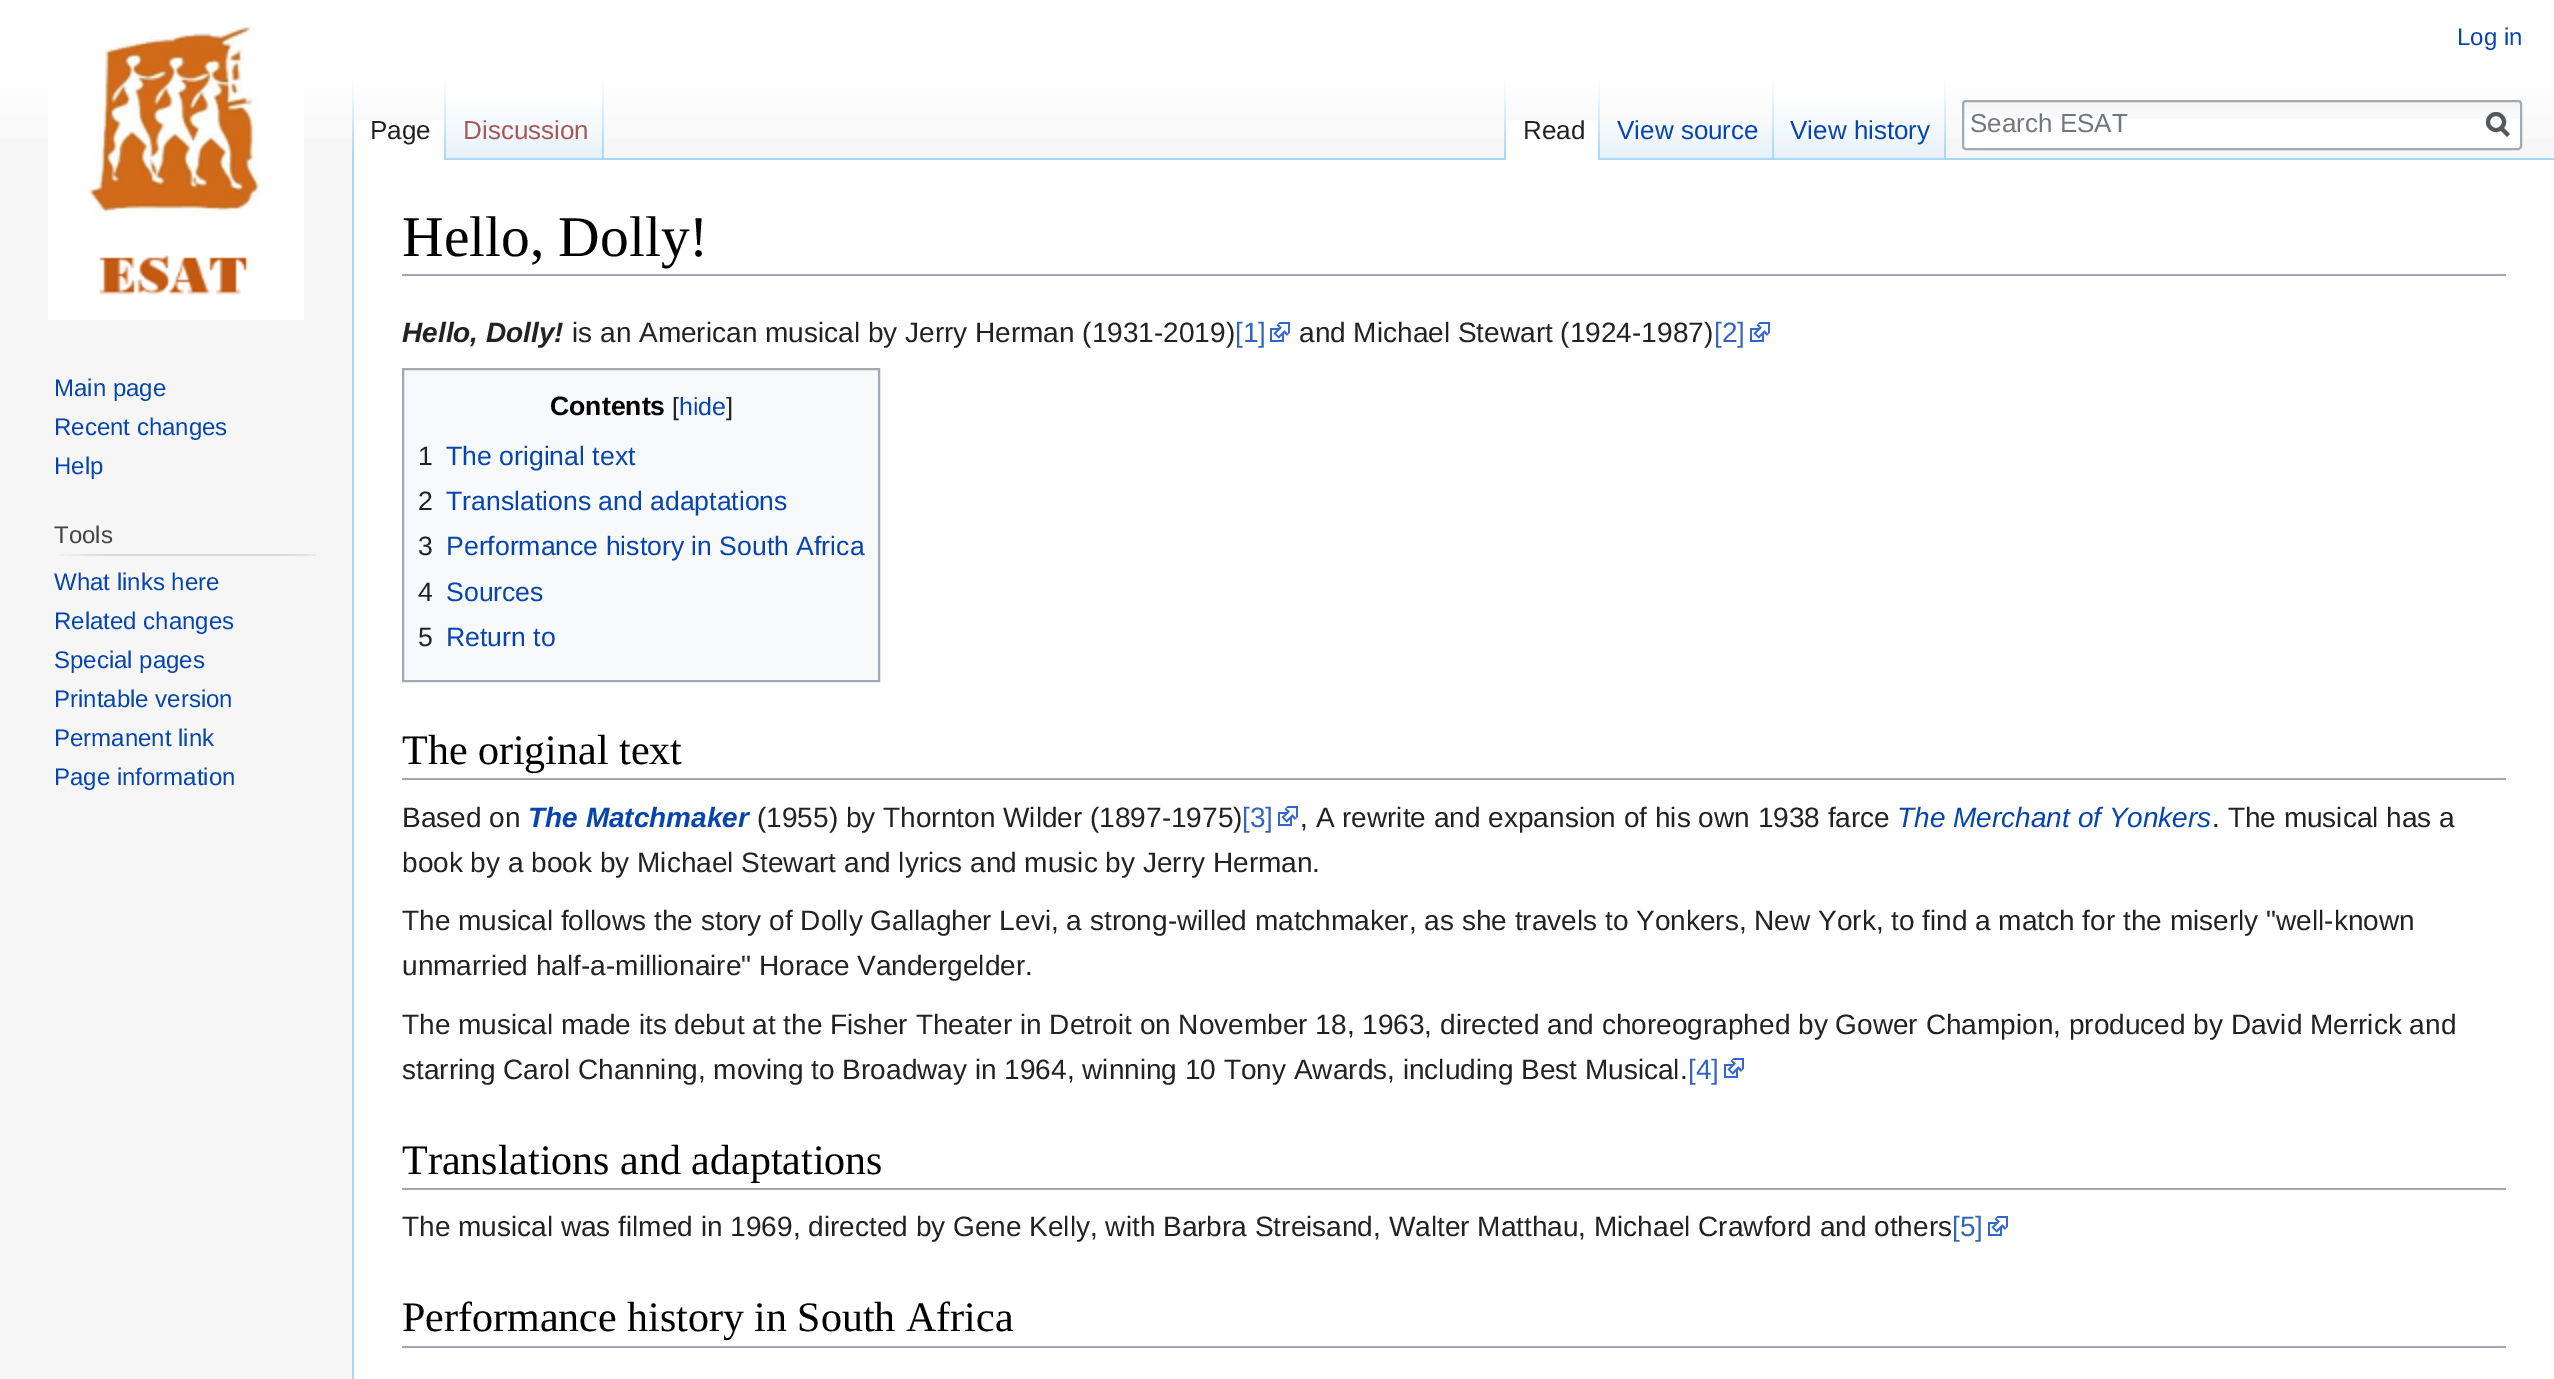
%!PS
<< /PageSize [2554 1379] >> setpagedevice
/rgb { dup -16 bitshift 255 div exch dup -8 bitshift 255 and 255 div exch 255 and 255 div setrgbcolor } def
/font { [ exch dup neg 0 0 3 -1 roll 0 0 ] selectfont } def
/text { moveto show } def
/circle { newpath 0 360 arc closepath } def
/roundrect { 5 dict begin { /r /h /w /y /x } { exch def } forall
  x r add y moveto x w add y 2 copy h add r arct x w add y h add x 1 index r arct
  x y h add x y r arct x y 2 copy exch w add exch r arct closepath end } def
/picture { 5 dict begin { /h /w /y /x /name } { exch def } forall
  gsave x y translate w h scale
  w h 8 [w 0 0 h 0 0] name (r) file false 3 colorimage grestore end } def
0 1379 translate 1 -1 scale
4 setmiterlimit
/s1 { /LiberationSans-Regular 24 font 16#0645AD rgb } def
/s2 { /LiberationSans-Regular 26 font 16#222222 rgb } def
/s3 { /LiberationSans-Regular 26 font 16#A55858 rgb } def
/s4 { /LiberationSans-Regular 26 font 16#0645AD rgb } def
/s5 { /LiberationSans-Regular 26 font 16#72777D rgb } def
/s6 { /LiberationSans-Regular 24 font 16#444444 rgb } def
/s7 { /LiberationSerif-Regular 57.5 font 16#000000 rgb } def
/s8 { /LiberationSans-BoldItalic 28 font 16#222222 rgb } def
/s9 { /LiberationSans-Regular 28 font 16#222222 rgb } def
/s10 { /LiberationSans-Regular 28 font 16#3366BB rgb } def
/s11 { /LiberationSans-Bold 26.6 font 16#000000 rgb } def
/s12 { /LiberationSans-Regular 25 font 16#222222 rgb } def
/s13 { /LiberationSans-Regular 25 font 16#0645AD rgb } def
/s14 { /LiberationSans-Regular 26.6 font 16#222222 rgb } def
/s15 { /LiberationSans-Regular 26.6 font 16#0645AD rgb } def
/s16 { /LiberationSerif-Regular 42 font 16#000000 rgb } def
/s17 { /LiberationSans-BoldItalic 28 font 16#0645AD rgb } def
/s18 { /LiberationSans-Italic 28 font 16#0645AD rgb } def
16#F6F6F6 rgb
0 0 2554 1379 rectfill
gsave 0 0 moveto 2554 0 lineto 2554 138 lineto 0 138 lineto closepath clip newpath
<< /ShadingType 2 /ColorSpace /DeviceRGB /Coords [1277 0 1277 160] /Extend [true true] /Function << /FunctionType 3 /Domain [0 1] /Functions [<< /FunctionType 2 /Domain [0 1] /C0 [1 1 1] /C1 [1 1 1] /N 1 >> << /FunctionType 2 /Domain [0 1] /C0 [1 1 1] /C1 [0.965 0.965 0.965] /N 1 >>] /Bounds [0.5] /Encode [0 1 0 1] >> >> shfill grestore
s1
(Log in) 2457 45 text
(pic1.raw) 352 80 2 78 picture
16#FFFFFF rgb
354 120 90 40 rectfill
(pic2.raw) 444 80 2 80 picture
s2
(Page) 370 139 text
16#A7D7F9 rgb
446 158 2108 2 rectfill
(pic3.raw) 446 80 156 79 picture
(pic4.raw) 602 80 2 79 picture
s3
(Discussion) 463 139 text
(pic1.raw) 1504 80 2 78 picture
16#FFFFFF rgb
1506 120 92 40 rectfill
(pic2.raw) 1598 80 2 80 picture
s2
(Read) 1523 139 text
(pic5.raw) 1600 123 172 36 picture
(pic4.raw) 1772 80 2 79 picture
s4
(View source) 1617 139 text
(pic6.raw) 1774 80 170 79 picture
(pic4.raw) 1944 80 2 79 picture
(View history) 1790 139 text
16#FFFFFF rgb
1962 100 560 50 4 roundrect fill
(pic7.raw) 1962 102 560 17 picture
16#A2A9B1 rgb
2 setlinewidth
1963 101 558 48 3 roundrect stroke
s5
(Search ESAT) 1970 132 text
16#54595D rgb
4 setlinewidth
2508.5 135.5 moveto 2500.5 127.5 lineto stroke
2496 122 8 circle stroke
(pic8.raw) 48 22 256 298 picture
s1
(Main page) 54 396 text
(Recent changes) 54 435 text
(Help) 54 474 text
s6
(Tools) 54 543 text
(pic9.raw) 59 554 257 2 picture
s1
(What links here) 54 590 text
(Related changes) 54 629 text
(Special pages) 54 668 text
(Printable version) 54 707 text
(Permanent link) 54 746 text
(Page information) 54 785 text
16#FFFFFF rgb
354 160 2200 1219 rectfill
16#A7D7F9 rgb
352 158 2 1221 rectfill
16#A2A9B1 rgb
402 274 2104 2 rectfill
s7
(Hello, Dolly!) 402 256 text
s8
(Hello, Dolly!) 402 342 text
s9
(is an American musical by Jerry Herman \(1931-2019\)) 572 342 text
s10
([1]) 1235 342 text
(pic10.raw) 1270 322 20 20 picture
s9
(and Michael Stewart \(1924-1987\)) 1299 342 text
s10
([2]) 1714 342 text
(pic10.raw) 1750 322 20 20 picture
16#F8F9FA rgb
403 369 moveto 879 369 lineto 879 681 lineto 403 681 lineto closepath gsave fill grestore
16#A2A9B1 rgb
2 setlinewidth
stroke
s11
(Contents) 550 415 text
s12
([) 672 415 text
s13
(hide) 679 415 text
s12
(]) 726 415 text
s14
(1) 418 465 text
s15
(The original text) 446 465 text
s14
(2) 418 510 text
s15
(Translations and adaptations) 446 510 text
s14
(3) 418 555 text
s15
(Performance history in South Africa) 446 555 text
s14
(4) 418 601 text
s15
(Sources) 446 601 text
s14
(5) 418 646 text
s15
(Return to) 446 646 text
16#A2A9B1 rgb
402 778 2104 2 rectfill
s16
(The original text) 402 764 text
s9
(Based on) 402 827 text
s17
(The Matchmaker) 528 827 text
s9
(\(1955\) by Thornton Wilder \(1897-1975\)) 757 827 text
s10
([3]) 1242 827 text
(pic10.raw) 1278 806 20 20 picture
s9
(, A rewrite and expansion of his own 1938 farce) 1300 827 text
s18
(The Merchant of Yonkers) 1897 827 text
s9
(. The musical has a) 2212 827 text
(book by a book by Michael Stewart and lyrics and music by Jerry Herman.) 402 872 text
(The musical follows the story of Dolly Gallagher Levi, a strong-willed matchmaker, as she travels to Yonkers, New York, to find a match for the miserly "well-known) 402 930 text
(unmarried half-a-millionaire" Horace Vandergelder.) 402 975 text
(The musical made its debut at the Fisher Theater in Detroit on November 18, 1963, directed and choreographed by Gower Champion, produced by David Merrick and) 402 1034 text
(starring Carol Channing, moving to Broadway in 1964, winning 10 Tony Awards, including Best Musical.) 402 1079 text
s10
([4]) 1688 1079 text
(pic10.raw) 1724 1058 20 20 picture
16#A2A9B1 rgb
402 1188 2104 2 rectfill
s16
(Translations and adaptations) 402 1174 text
s9
(The musical was filmed in 1969, directed by Gene Kelly, with Barbra Streisand, Walter Matthau, Michael Crawford and others) 402 1236 text
s10
([5]) 1952 1236 text
(pic10.raw) 1988 1216 20 20 picture
16#A2A9B1 rgb
402 1346 2104 2 rectfill
s16
(Performance history in South Africa) 402 1331 text
showpage
